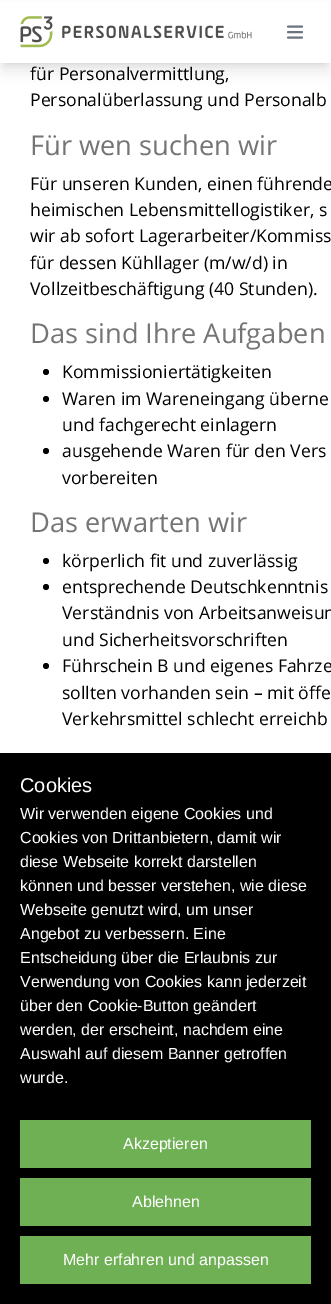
%!PS
<< /PageSize [331 1304] /PageUsesTransparency true >> setpagedevice
/rgb { dup -16 bitshift 255 div exch dup -8 bitshift 255 and 255 div exch 255 and 255 div setrgbcolor } def
/font { [ exch dup neg 0 0 3 -1 roll 0 0 ] selectfont } def
/text { moveto show } def
/alpha { dup .setfillconstantalpha .setstrokeconstantalpha } def
/circle { newpath 0 360 arc closepath } def
/roundrect { 5 dict begin { /r /h /w /y /x } { exch def } forall
  x r add y moveto x w add y 2 copy h add r arct x w add y h add x 1 index r arct
  x y h add x y r arct x y 2 copy exch w add exch r arct closepath end } def
/shadow { 12 dict begin { /a /b /q /h /w /y /x } { exch def } forall gsave /was 0 def
  9 -2 -9 { dup b mul 4 div /e exch def 1 sub .425 mul 2.718 exch exp 1 add a .99 .min exch div /now exch def
    1 1 now sub 1 was sub div sub alpha /was now def
    w h .min e 2 mul add 0 gt { x e sub y e sub w e 2 mul add h e 2 mul add
      q e add b .6 mul add w h .min 2 div e add .min 0 .max roundrect fill } if } for grestore end } def
/picture { 5 dict begin { /h /w /y /x /name } { exch def } forall
  gsave x y translate w h scale
  w h 8 [w 0 0 h 0 0] name (r) file false 3 colorimage grestore end } def
0 .pushpdf14devicefilter
0 1304 translate 1 -1 scale
4 setmiterlimit
/s1 { /OpenSans-Regular 17.6 font 16#000000 rgb } def
/s2 { /OpenSans-Regular 27.25 font 16#757575 rgb } def
/s3 { /LiberationSans-Regular 20 font 16#FFFFFF rgb } def
/s4 { /LiberationSans-Regular 16 font 16#FFFFFF rgb } def
16#FFFFFF rgb
0 0 331 1304 rectfill
16#000000 rgb
4 8 323 55 0 3 0.1 shadow
3 13 325 57 0 7.5 0.1 shadow
16#FFFFFF rgb
0 2 331 61 rectfill
(pic1.raw) 20 16 232 32 picture
16#6B7280 rgb
1.9 setlinewidth
1 setlinecap
1 setlinejoin
288 26.5 moveto 302 26.5 lineto 288 32 moveto 302 32 lineto 288 37.5 moveto 302 37.5 lineto stroke
s1
(für Personalvermittlung,) 30 80 text
(Personalüberlassung und Personalb) 30 106 text
s2
(Für wen suchen wir) 30 155 text
s1
(Für unseren Kunden, einen führende) 30 190 text
(heimischen Lebensmittellogistiker, s) 30 216 text
(wir ab sofort Lagerarbeiter/Kommiss) 30 242 text
(für dessen Kühllager \(m/w/d\) in) 30 269 text
(Vollzeitbeschäftigung \(40 Stunden\).) 30 295 text
s2
(Das sind Ihre Aufgaben) 30 343 text
16#000000 rgb
46 372 3 circle fill
s1
(Kommissioniertätigkeiten) 62 378 text
46 399 3 circle fill
(Waren im Wareneingang überne) 62 405 text
(und fachgerecht einlagern) 62 431 text
46 451 3 circle fill
(ausgehende Waren für den Vers) 62 457 text
(vorbereiten) 62 484 text
s2
(Das erwarten wir) 30 532 text
16#000000 rgb
46 561 3 circle fill
s1
(körperlich fit und zuverlässig) 62 567 text
46 587 3 circle fill
(entsprechende Deutschkenntnis) 62 593 text
(Verständnis von Arbeitsanweisun) 62 619 text
(und Sicherheitsvorschriften) 62 646 text
46 666 3 circle fill
(Führschein B und eigenes Fahrze) 62 672 text
(sollten vorhanden sein – mit öffe) 62 699 text
(Verkehrsmittel schlecht erreichb) 62 725 text
0 753 331 551 rectfill
s3
(Cookies) 20 792 text
s4
(Wir verwenden eigene Cookies und) 20 819 text
(Cookies von Drittanbietern, damit wir) 20 843 text
(diese Webseite korrekt darstellen) 20 867 text
(können und besser verstehen, wie diese) 20 891 text
(Webseite genutzt wird, um unser) 20 915 text
(Angebot zu verbessern. Eine) 20 939 text
(Entscheidung über die Erlaubnis zur) 20 963 text
(Verwendung von Cookies kann jederzeit) 20 987 text
(über den Cookie-Button geändert) 20 1011 text
(werden, der erscheint, nachdem eine) 20 1035 text
(Auswahl auf diesem Banner getroffen) 20 1059 text
(wurde.) 20 1083 text
16#6FB055 rgb
20 1120 291 48 rectfill
s4
(Akzeptieren) 123 1149 text
16#6FB055 rgb
20 1178 291 48 rectfill
s4
(Ablehnen) 132 1207 text
16#6FB055 rgb
20 1236 291 48 rectfill
s4
(Mehr erfahren und anpassen) 63 1265 text
.poppdf14devicefilter showpage
